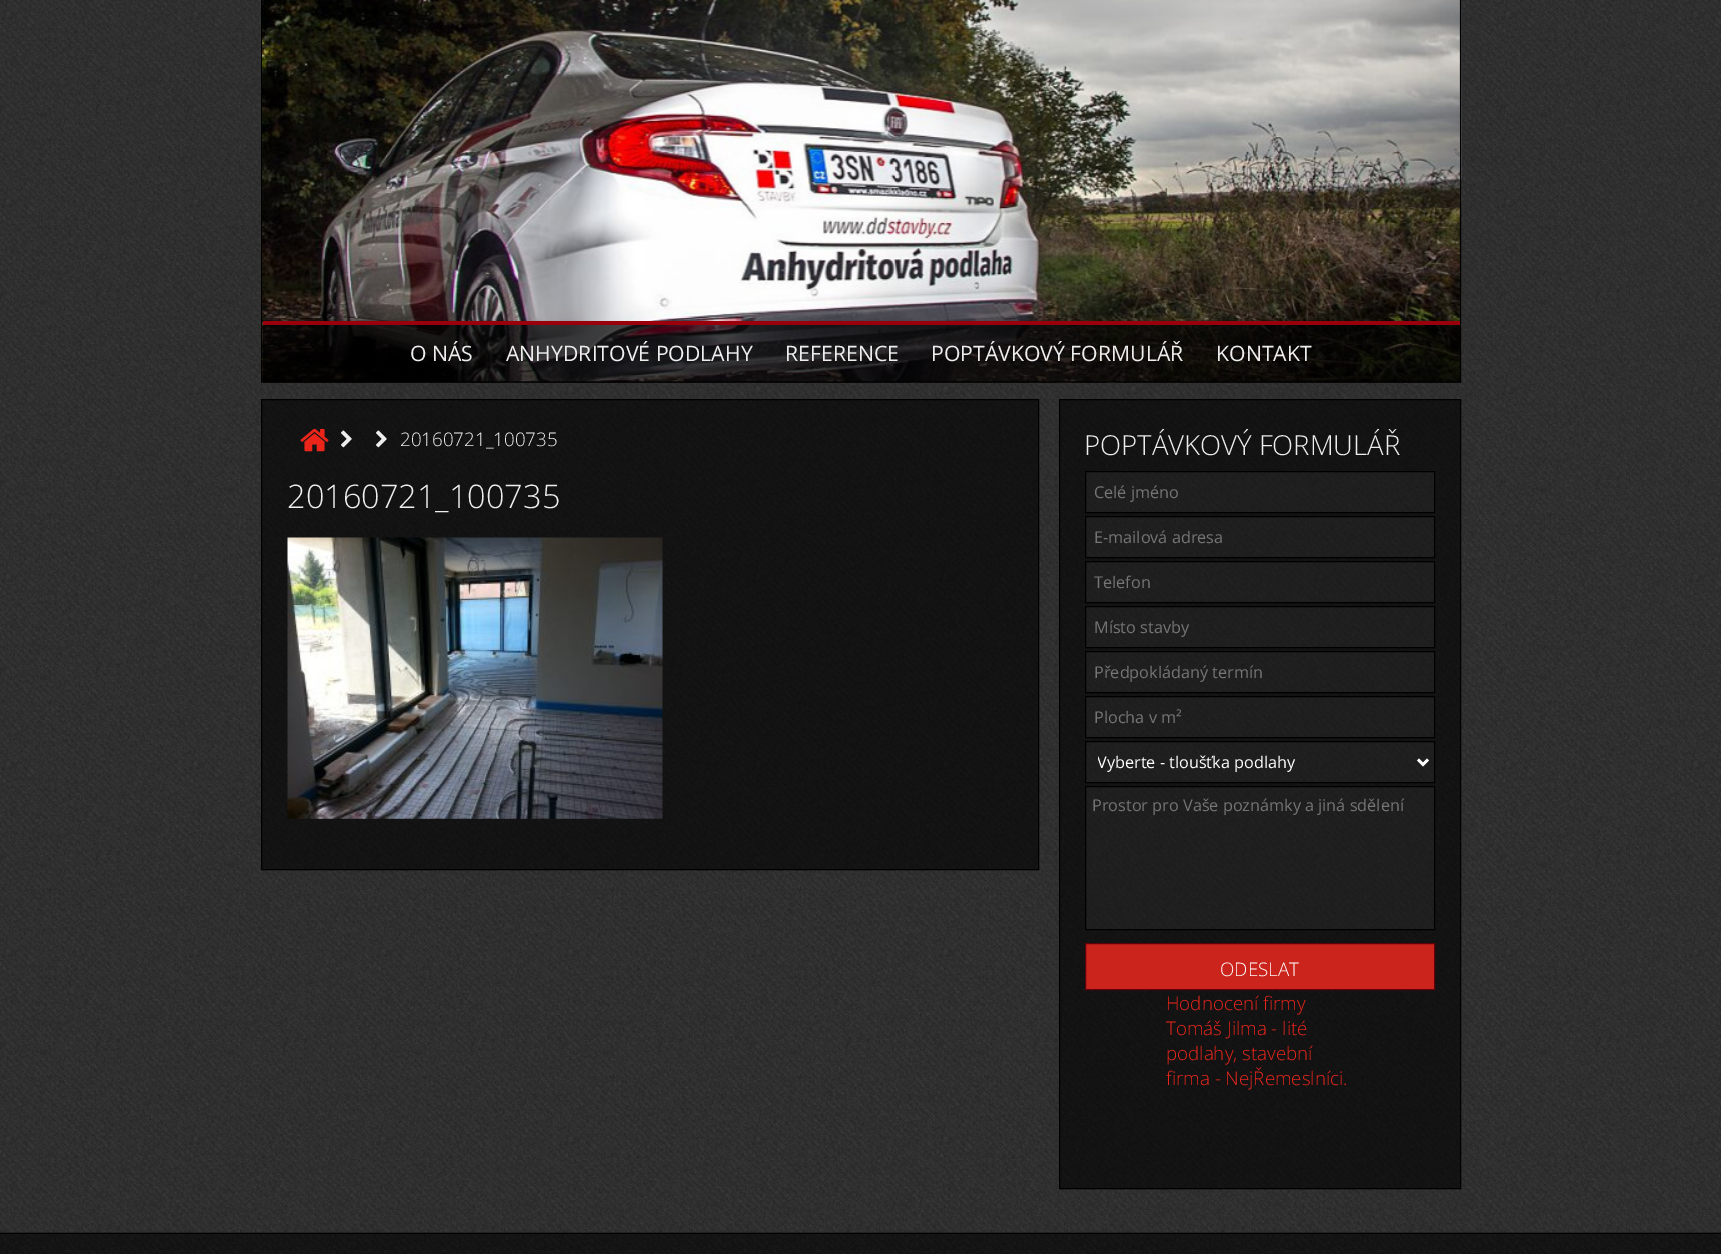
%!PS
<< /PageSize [1721 1254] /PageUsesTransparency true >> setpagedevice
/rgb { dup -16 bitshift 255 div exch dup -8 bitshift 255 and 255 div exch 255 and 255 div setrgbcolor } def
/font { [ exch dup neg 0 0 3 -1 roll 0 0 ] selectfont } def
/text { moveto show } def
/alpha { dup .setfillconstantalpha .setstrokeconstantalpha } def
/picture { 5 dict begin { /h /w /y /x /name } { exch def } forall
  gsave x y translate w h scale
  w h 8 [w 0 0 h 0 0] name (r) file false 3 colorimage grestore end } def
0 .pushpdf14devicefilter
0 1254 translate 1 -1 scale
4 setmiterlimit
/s1 { /OpenSans-Regular 21.25 font 16#EEEEEE rgb } def
/s2 { /OpenSans-Light 18.75 font 16#EEEEEE rgb } def
/s3 { /OpenSans-Light 32.5 font 16#EEEEEE rgb } def
/s4 { /OpenSans-Light 27.5 font 16#EEEEEE rgb } def
/s5 { /OpenSans-Regular 16.25 font 16#757575 rgb } def
/s6 { /OpenSans-Regular 16.25 font 16#FFFFFF rgb } def
/s7 { /OpenSans-Light 18.75 font 16#FFFFFF rgb } def
/s8 { /OpenSans-Light 18.75 font 16#EC251B rgb } def
16#FFFFFF rgb
0 0 1721 1254 rectfill
(pic1.raw) 0 1232 1721 22 picture
(pic2.raw) 0 0 1721 1233 picture
(pic3.raw) 262 0 1200 383 picture
16#000000 rgb
1460 0 1 383 rectfill
261 381 1200 1 rectfill
261 0 1 383 rectfill
(pic4.raw) 262 0 1198 382 picture
0.7 alpha
263 325 1197 58 rectfill
1 alpha
16#9A000C rgb
263 321 1197 4 rectfill
s1
(O NÁS) 410 361 text
(ANHYDRITOVÉ PODLAHY) 506 361 text
(REFERENCE) 785 361 text
(POPTÁVKOVÝ FORMULÁŘ) 931 361 text
(KONTAKT) 1216 361 text
0.6 alpha
16#000000 rgb
261.5 399.5 moveto 1038.5 399.5 lineto 1038.5 869.5 lineto 261.5 869.5 lineto closepath fill
1 alpha
261.5 399.5 moveto 1038.5 399.5 lineto 1038.5 869.5 lineto 261.5 869.5 lineto closepath stroke
(pic5.raw) 300 428 29 24 picture
(pic6.raw) 341 430 11 18 picture
(pic7.raw) 376 430 11 18 picture
s2
(20160721_100735) 400 446 text
s3
(20160721_100735) 287 508 text
(pic8.raw) 287 537 376 282 picture
0.6 alpha
16#000000 rgb
1059.5 399.5 moveto 1460.5 399.5 lineto 1460.5 1188.5 lineto 1059.5 1188.5 lineto closepath fill
1 alpha
1059.5 399.5 moveto 1460.5 399.5 lineto 1460.5 1188.5 lineto 1059.5 1188.5 lineto closepath stroke
s4
(POPTÁVKOVÝ FORMULÁŘ) 1084 455 text
0.05 alpha
16#FFFFFF rgb
1085.5 471.5 moveto 1434.5 471.5 lineto 1434.5 512.5 lineto 1085.5 512.5 lineto closepath fill
1 alpha
16#000000 rgb
1085.5 471.5 moveto 1434.5 471.5 lineto 1434.5 512.5 lineto 1085.5 512.5 lineto closepath stroke
s5
(Celé jméno) 1094 498 text
0.05 alpha
16#FFFFFF rgb
1085.5 516.5 moveto 1434.5 516.5 lineto 1434.5 557.5 lineto 1085.5 557.5 lineto closepath fill
1 alpha
16#000000 rgb
1085.5 516.5 moveto 1434.5 516.5 lineto 1434.5 557.5 lineto 1085.5 557.5 lineto closepath stroke
s5
(E-mailová adresa) 1094 543 text
0.05 alpha
16#FFFFFF rgb
1085.5 561.5 moveto 1434.5 561.5 lineto 1434.5 602.5 lineto 1085.5 602.5 lineto closepath fill
1 alpha
16#000000 rgb
1085.5 561.5 moveto 1434.5 561.5 lineto 1434.5 602.5 lineto 1085.5 602.5 lineto closepath stroke
s5
(Telefon) 1094 588 text
0.05 alpha
16#FFFFFF rgb
1085.5 606.5 moveto 1434.5 606.5 lineto 1434.5 647.5 lineto 1085.5 647.5 lineto closepath fill
1 alpha
16#000000 rgb
1085.5 606.5 moveto 1434.5 606.5 lineto 1434.5 647.5 lineto 1085.5 647.5 lineto closepath stroke
s5
(Místo stavby) 1094 633 text
0.05 alpha
16#FFFFFF rgb
1085.5 651.5 moveto 1434.5 651.5 lineto 1434.5 692.5 lineto 1085.5 692.5 lineto closepath fill
1 alpha
16#000000 rgb
1085.5 651.5 moveto 1434.5 651.5 lineto 1434.5 692.5 lineto 1085.5 692.5 lineto closepath stroke
s5
(Předpokládaný termín) 1094 678 text
0.05 alpha
16#FFFFFF rgb
1085.5 696.5 moveto 1434.5 696.5 lineto 1434.5 737.5 lineto 1085.5 737.5 lineto closepath fill
1 alpha
16#000000 rgb
1085.5 696.5 moveto 1434.5 696.5 lineto 1434.5 737.5 lineto 1085.5 737.5 lineto closepath stroke
s5
(Plocha v m²) 1094 723 text
0.05 alpha
16#FFFFFF rgb
1085.5 741.5 moveto 1434.5 741.5 lineto 1434.5 782.5 lineto 1085.5 782.5 lineto closepath fill
1 alpha
16#000000 rgb
1085.5 741.5 moveto 1434.5 741.5 lineto 1434.5 782.5 lineto 1085.5 782.5 lineto closepath stroke
16#FFFFFF rgb
2.5 setlinewidth
1418 759.5 moveto 1423 764.5 lineto 1428 759.5 lineto stroke
gsave
1098 750 310 25 rectclip
(Vyberte - tloušťka podlahy) 1097 768 text
grestore
0.05 alpha
1085.5 786.5 moveto 1434.5 786.5 lineto 1434.5 929.5 lineto 1085.5 929.5 lineto closepath fill
1 alpha
16#000000 rgb
1 setlinewidth
1085.5 786.5 moveto 1434.5 786.5 lineto 1434.5 929.5 lineto 1085.5 929.5 lineto closepath stroke
s5
(Prostor pro Vaše poznámky a jiná sdělení) 1092 811 text
16#CA241C rgb
1085.5 943.5 moveto 1434.5 943.5 lineto 1434.5 989.5 lineto 1085.5 989.5 lineto closepath gsave fill grestore
16#60000B rgb
stroke
s7
(ODESLAT) 1220 976 text
s8
(Hodnocení firmy) 1166 1010 text
(Tomáš Jilma - lité) 1166 1035 text
(podlahy, stavební) 1166 1060 text
(firma - NejŘemeslníci.) 1166 1085 text
16#000000 rgb
0 1233 1721 1 rectfill
16#101010 rgb
1270 1253 1 1 rectfill
.poppdf14devicefilter showpage
